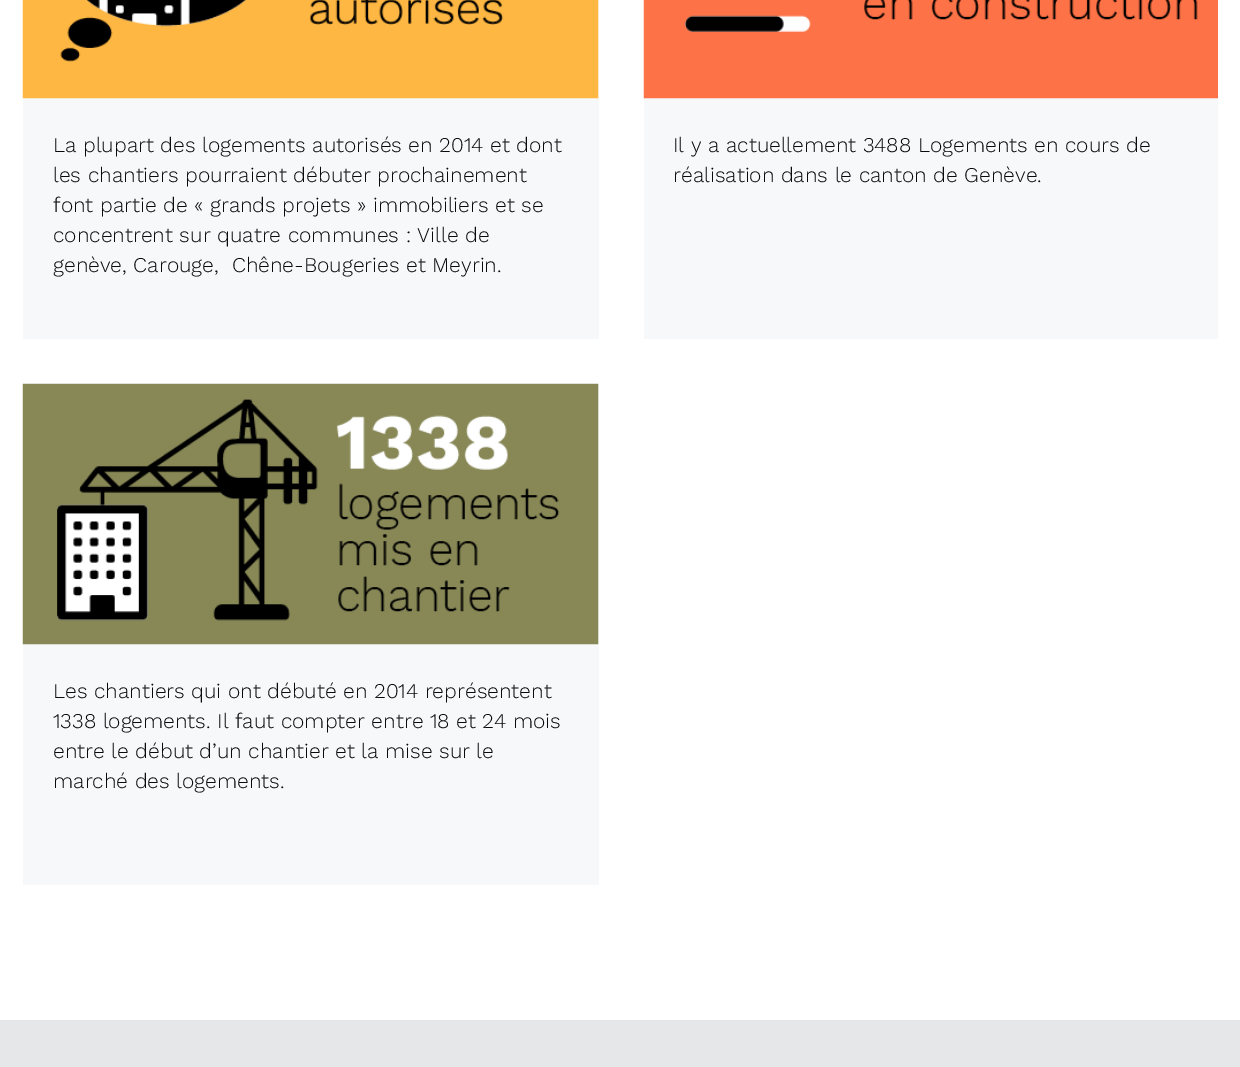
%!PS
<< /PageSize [1240 1067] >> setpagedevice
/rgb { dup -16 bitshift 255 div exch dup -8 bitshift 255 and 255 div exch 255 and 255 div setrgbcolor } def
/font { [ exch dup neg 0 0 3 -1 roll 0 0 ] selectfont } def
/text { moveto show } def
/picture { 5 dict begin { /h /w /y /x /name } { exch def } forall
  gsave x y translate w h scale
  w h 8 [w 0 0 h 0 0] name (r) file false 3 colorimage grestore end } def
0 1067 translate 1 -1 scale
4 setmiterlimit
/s1 { /WorkSans-Light 21 font 16#0A0A0A rgb } def
16#FFFFFF rgb
0 0 1240 1067 rectfill
16#F6F7F8 rgb
23 0 576 99 rectfill
(pic1.raw) 22 0 577 99 picture
16#F7F8F9 rgb
23 99 576 240 rectfill
s1
(La plupart des logements autorisés en 2014 et dont) 53 152 text
(les chantiers pourraient débuter prochainement) 53 182 text
(font partie de « grands projets » immobiliers et se) 53 212 text
(concentrent sur quatre communes : Ville de) 53 242 text
(genève, Carouge,  Chêne-Bougeries et Meyrin.) 53 272 text
16#F6F7F8 rgb
644 98 574 1 rectfill
(pic2.raw) 643 0 575 99 picture
16#F7F8F9 rgb
644 99 574 240 rectfill
s1
(Il y a actuellement 3488 Logements en cours de) 673 152 text
(réalisation dans le canton de Genève.) 673 182 text
16#F6F7F8 rgb
23 384 576 261 rectfill
(pic3.raw) 22 383 577 262 picture
16#F7F8F9 rgb
23 645 576 240 rectfill
s1
(Les chantiers qui ont débuté en 2014 représentent) 53 698 text
(1338 logements. Il faut compter entre 18 et 24 mois) 53 728 text
(entre le début d’un chantier et la mise sur le) 53 758 text
(marché des logements.) 53 788 text
16#E6E7E8 rgb
0 1020 1240 47 rectfill
showpage
